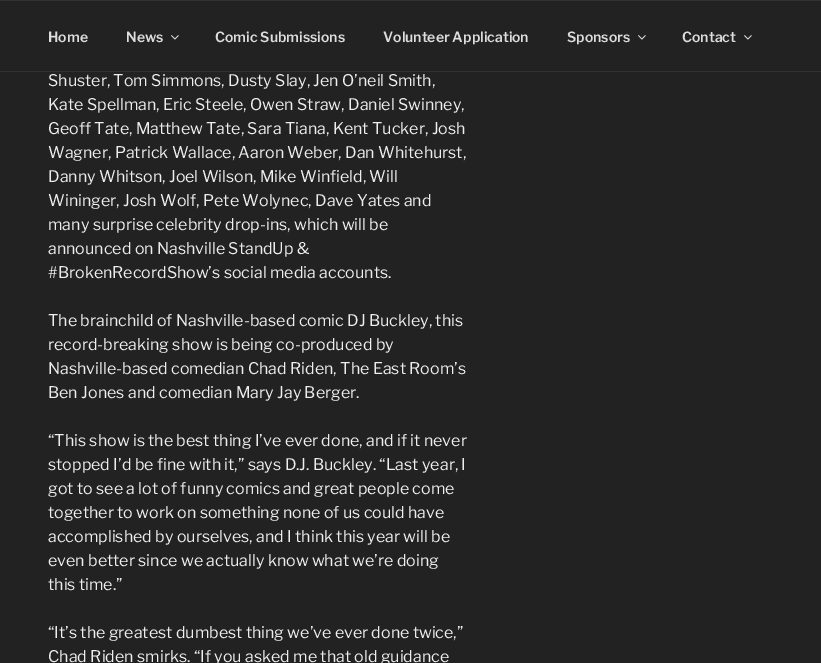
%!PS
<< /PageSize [821 663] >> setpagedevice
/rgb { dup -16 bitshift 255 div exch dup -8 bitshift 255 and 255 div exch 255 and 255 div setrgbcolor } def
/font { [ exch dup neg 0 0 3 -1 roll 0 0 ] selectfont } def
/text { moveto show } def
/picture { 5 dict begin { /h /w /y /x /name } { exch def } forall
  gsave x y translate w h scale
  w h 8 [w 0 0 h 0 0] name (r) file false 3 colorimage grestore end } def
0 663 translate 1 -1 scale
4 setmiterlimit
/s1 { /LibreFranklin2-Thin 14 font 16#DDDDDD rgb } def
/s2 { /LibreFranklin-Thin 16 font 16#EEEEEE rgb } def
16#222222 rgb
0 0 821 663 rectfill
16#333333 rgb
0 0 821 1 rectfill
0 71 821 1 rectfill
s1
(Home) 48 42 text
(News) 126 42 text
(pic1.raw) 171 35 8 5 picture
(Comic Submissions) 215 42 text
(Volunteer Application) 383 42 text
(Sponsors) 567 42 text
(pic1.raw) 638 35 8 5 picture
(Contact) 682 42 text
(pic1.raw) 744 35 8 5 picture
s2
(Shuster, Tom Simmons, Dusty Slay, Jen O’neil Smith,) 48 86 text
(Kate Spellman, Eric Steele, Owen Straw, Daniel Swinney,) 48 110 text
(Geoff Tate, Matthew Tate, Sara Tiana, Kent Tucker, Josh) 48 134 text
(Wagner, Patrick Wallace, Aaron Weber, Dan Whitehurst,) 48 158 text
(Danny Whitson, Joel Wilson, Mike Winfield, Will) 48 182 text
(Wininger, Josh Wolf, Pete Wolynec, Dave Yates and) 48 206 text
(many surprise celebrity drop-ins, which will be) 48 230 text
(announced on Nashville StandUp &) 48 254 text
(#BrokenRecordShow’s social media accounts.) 48 278 text
(The brainchild of Nashville-based comic DJ Buckley, this) 48 326 text
(record-breaking show is being co-produced by) 48 350 text
(Nashville-based comedian Chad Riden, The East Room’s) 48 374 text
(Ben Jones and comedian Mary Jay Berger.) 48 398 text
(“This show is the best thing I’ve ever done, and if it never) 48 446 text
(stopped I’d be fine with it,” says D.J. Buckley. “Last year, I) 48 470 text
(got to see a lot of funny comics and great people come) 48 494 text
(together to work on something none of us could have) 48 518 text
(accomplished by ourselves, and I think this year will be) 48 542 text
(even better since we actually know what we’re doing) 48 566 text
(this time.”) 48 590 text
(“It’s the greatest dumbest thing we’ve ever done twice,”) 48 638 text
(Chad Riden smirks. “If you asked me that old guidance) 48 662 text
showpage
